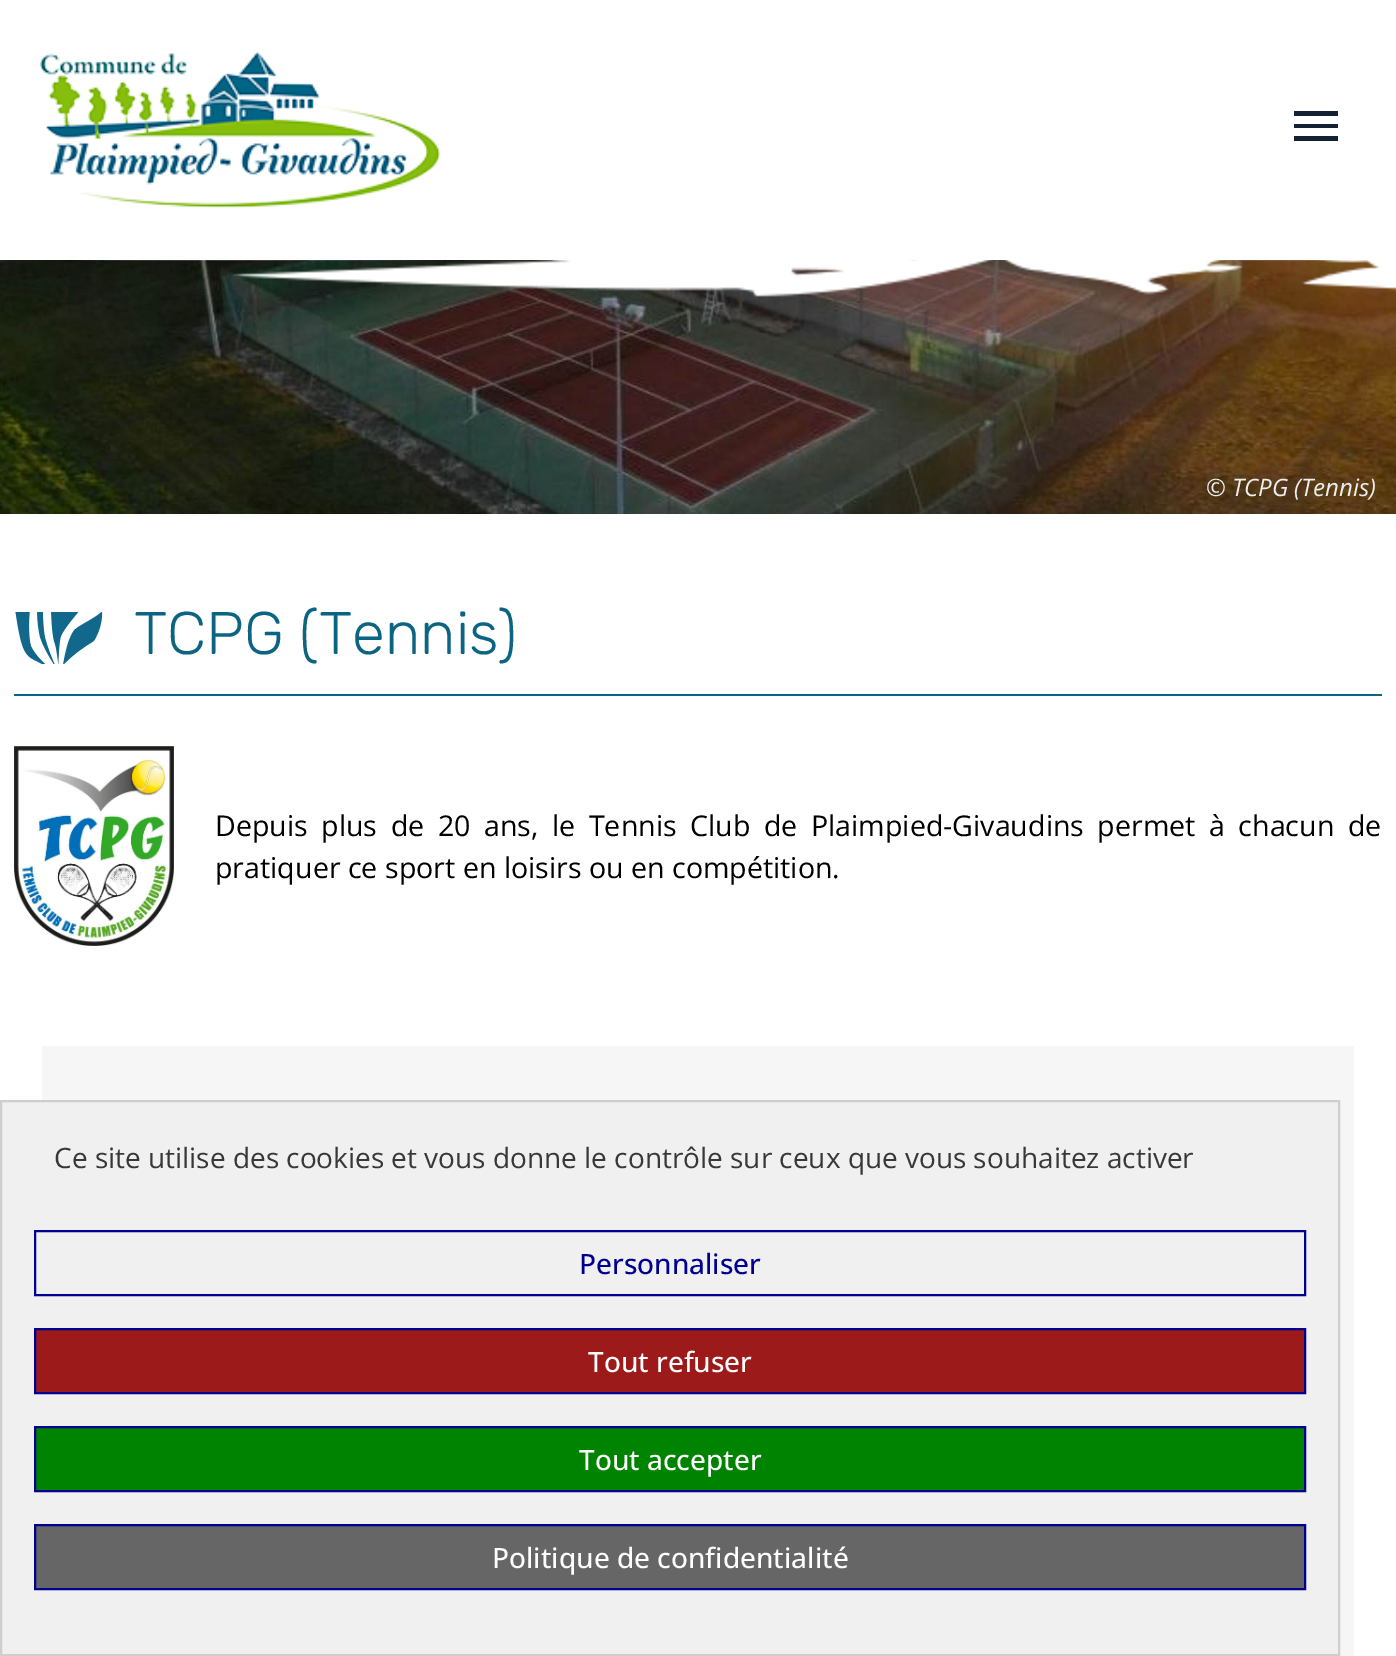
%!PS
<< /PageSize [1396 1656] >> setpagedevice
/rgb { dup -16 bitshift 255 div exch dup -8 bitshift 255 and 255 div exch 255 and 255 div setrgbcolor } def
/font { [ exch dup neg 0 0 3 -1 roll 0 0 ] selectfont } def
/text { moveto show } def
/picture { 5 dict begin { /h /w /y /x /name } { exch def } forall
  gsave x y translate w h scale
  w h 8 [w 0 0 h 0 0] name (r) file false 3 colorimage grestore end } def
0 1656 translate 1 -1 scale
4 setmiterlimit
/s1 { /OpenSans-Italic 24 font 16#EEEEEE rgb } def
/s2 { /Rubik-Light 60 font 16#0C6483 rgb } def
/s3 { /OpenSans-Regular 28.6 font 16#000000 rgb } def
/s4 { /OpenSans-Regular 28 font 16#383838 rgb } def
/s5 { /OpenSans-Medium 28 font 16#000091 rgb } def
/s6 { /OpenSans-Medium 28 font 16#FFFFFF rgb } def
16#FFFFFF rgb
0 0 1396 1656 rectfill
(pic1.raw) 40 52 400 156 picture
16#132133 rgb
1294 111 moveto 1338 111 lineto 1338 116 lineto 1294 116 lineto closepath 1294 128 moveto 1294 124 lineto 1338 124 lineto 1338 128 lineto closepath 1294 141 moveto 1294 136 lineto 1338 136 lineto 1338 141 lineto closepath fill
(pic2.raw) 0 260 1396 254 picture
(pic3.raw) 78 260 1318 37 picture
s1
(© TCPG \(Tennis\)) 1206 496 text
16#0C6483 rgb
14 694 1368 2 rectfill
(pic4.raw) 15 612 88 52 picture
s2
(TCPG \(Tennis\)) 134 654 text
(pic5.raw) 14 746 160 200 picture
/OpenSans-Regular 28.6 font
16#000000 rgb
215 836 moveto 6.1 0 32 (Depuis plus de 20 ans, le Tennis Club de Plaimpied-Givaudins permet à chacun de) widthshow
(pratiquer ce sport en loisirs ou en compétition.) 215 878 text
16#F6F6F6 rgb
42 1046 1312 610 rectfill
16#F0F0F0 rgb
1 1101 moveto 1339 1101 lineto 1339 1655 lineto 1 1655 lineto closepath gsave fill grestore
16#CECECE rgb
2 setlinewidth
stroke
s4
(Ce site utilise des cookies et vous donne le contrôle sur ceux que vous souhaitez activer) 54 1168 text
16#000091 rgb
35 1231 1270 64 rectstroke
s5
(Personnaliser) 579 1274 text
16#9C1A1A rgb
35 1329 moveto 1305 1329 lineto 1305 1393 lineto 35 1393 lineto closepath gsave fill grestore
16#000091 rgb
stroke
s6
(Tout refuser) 588 1372 text
16#008300 rgb
35 1427 moveto 1305 1427 lineto 1305 1491 lineto 35 1491 lineto closepath gsave fill grestore
16#000091 rgb
stroke
s6
(Tout accepter) 579 1470 text
16#666666 rgb
35 1525 moveto 1305 1525 lineto 1305 1589 lineto 35 1589 lineto closepath gsave fill grestore
16#000091 rgb
stroke
s6
(Politique de confidentialité) 492 1568 text
showpage
